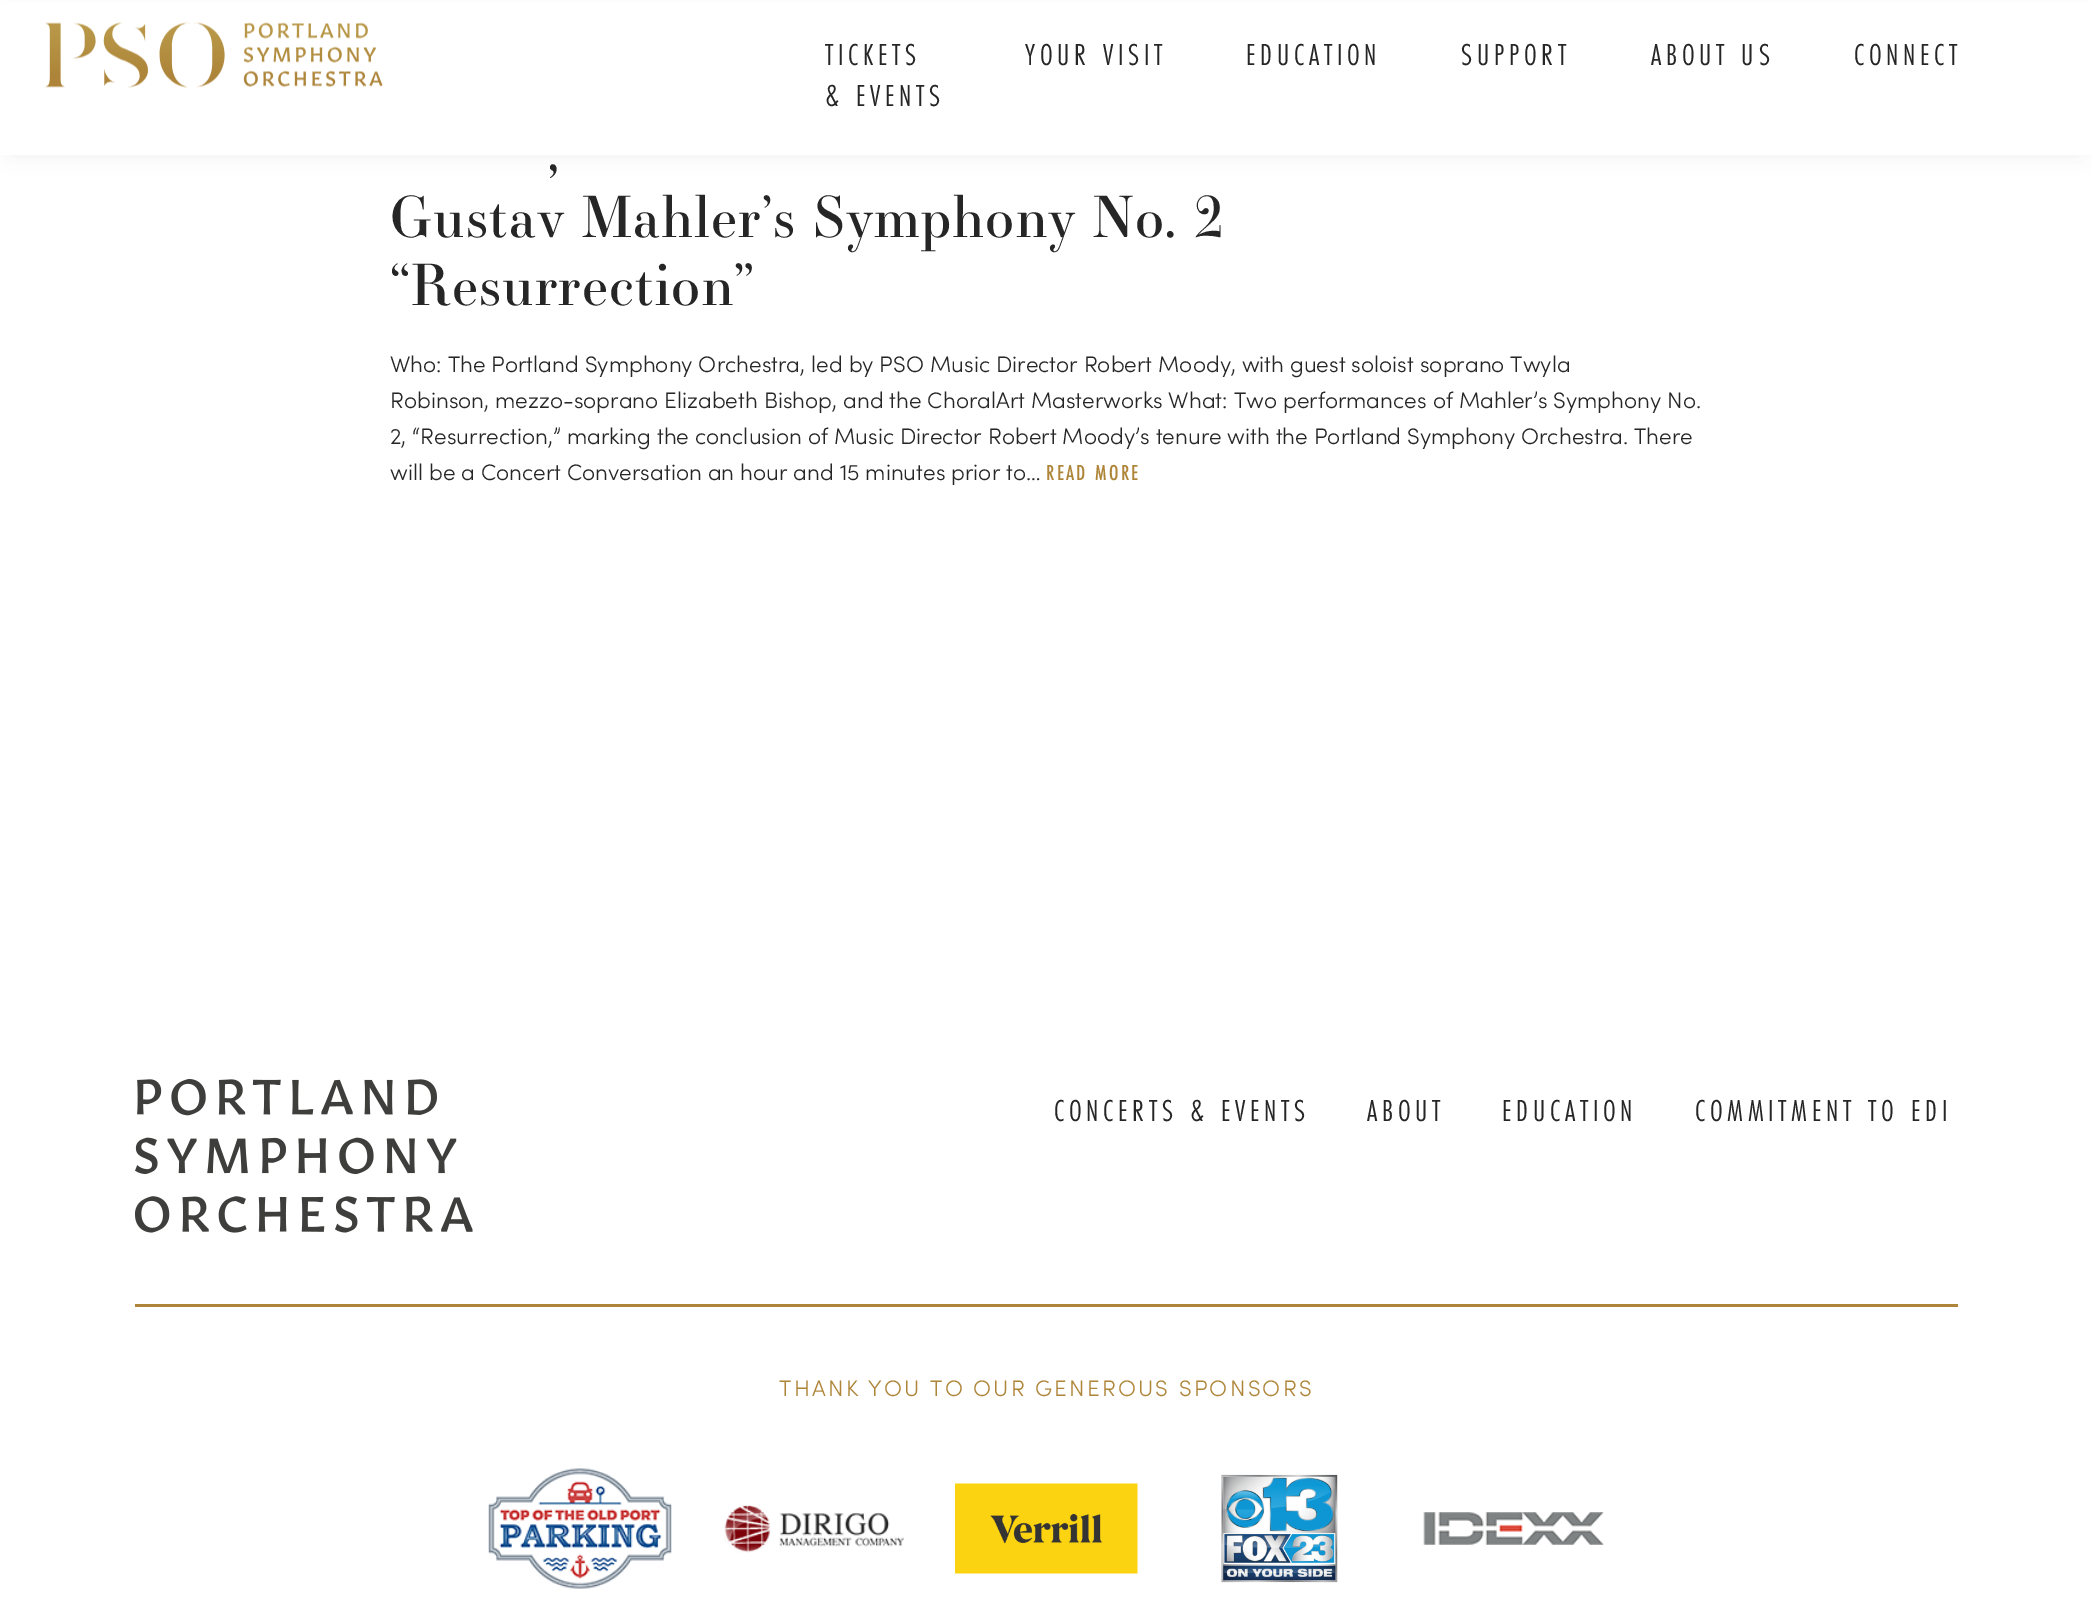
%!PS
<< /PageSize [2092 1598] /PageUsesTransparency true >> setpagedevice
/rgb { dup -16 bitshift 255 div exch dup -8 bitshift 255 and 255 div exch 255 and 255 div setrgbcolor } def
/font { [ exch dup neg 0 0 3 -1 roll 0 0 ] selectfont } def
/text { moveto show } def
/alpha { dup .setfillconstantalpha .setstrokeconstantalpha } def
/roundrect { 5 dict begin { /r /h /w /y /x } { exch def } forall
  x r add y moveto x w add y 2 copy h add r arct x w add y h add x 1 index r arct
  x y h add x y r arct x y 2 copy exch w add exch r arct closepath end } def
/shadow { 12 dict begin { /a /b /q /h /w /y /x } { exch def } forall gsave /was 0 def
  9 -2 -9 { dup b mul 4 div /e exch def 1 sub .425 mul 2.718 exch exp 1 add a .99 .min exch div /now exch def
    1 1 now sub 1 was sub div sub alpha /was now def
    w h .min e 2 mul add 0 gt { x e sub y e sub w e 2 mul add h e 2 mul add
      q e add b .6 mul add w h .min 2 div e add .min 0 .max roundrect fill } if } for grestore end } def
/picture { 5 dict begin { /h /w /y /x /name } { exch def } forall
  gsave x y translate w h scale
  w h 8 [w 0 0 h 0 0] name (r) file false 3 colorimage grestore end } def
0 .pushpdf14devicefilter
0 1598 translate 1 -1 scale
4 setmiterlimit
/s1 { /Sofia-Light 22.5 font 16#252625 rgb } def
16#FFFFFF rgb
0 0 2092 1598 rectfill
16#000000 rgb
13 19 2067 130 0 12.5 0.1 shadow
16#FFFFFF rgb
0 3 2092 152 rectfill
(pic1.raw) 45 22 338 66 picture
/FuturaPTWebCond-Regular 31.5 font
16#252625 rgb
825 65 moveto 4.75 0 (TICKETS) ashow
825 106 moveto 4.75 0 (& EVENTS) ashow
1025 65 moveto 4.75 0 (YOUR VISIT) ashow
1246 65 moveto 4.75 0 (EDUCATION) ashow
1461 65 moveto 4.75 0 (SUPPORT) ashow
1651 65 moveto 4.75 0 (ABOUT US) ashow
1854 65 moveto 4.75 0 (CONNECT) ashow
/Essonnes-Regular 56.25 font
548 170 moveto 1.1 0 (,) ashow
390 237 moveto 1.1 0 (Gustav Mahler’s Symphony No. 2) ashow
390 305 moveto 1.1 0 (“Resurrection”) ashow
s1
(Who: The Portland Symphony Orchestra, led by PSO Music Director Robert Moody, with guest soloist soprano Twyla) 390 372 text
(Robinson, mezzo-soprano Elizabeth Bishop, and the ChoralArt Masterworks What: Two performances of Mahler’s Symphony No.) 390 408 text
(2, “Resurrection,” marking the conclusion of Music Director Robert Moody’s tenure with the Portland Symphony Orchestra. There) 390 444 text
(will be a Concert Conversation an hour and 15 minutes prior to…) 390 480 text
/FuturaPTWebCond-Medium 22.5 font
16#AE8539 rgb
1046 480 moveto 2.25 0 (READ MORE) ashow
(pic2.raw) 135 1079 338 154 picture
/FuturaPTWebCond-Regular 31.5 font
16#252625 rgb
1054 1121 moveto 4.75 0 (CONCERTS & EVENTS) ashow
1367 1121 moveto 4.75 0 (ABOUT) ashow
1502 1121 moveto 4.75 0 (EDUCATION) ashow
1695 1121 moveto 4.75 0 (COMMITMENT TO EDI) ashow
16#AE8539 rgb
135 1304 1823 3 rectfill
/Sofia-Light 22.5 font
779 1396 moveto 2.25 0 (THANK YOU TO OUR GENEROUS SPONSORS) ashow
(pic3.raw) 488 1468 184 121 picture
(pic4.raw) 724 1505 180 48 picture
(pic5.raw) 955 1483 183 91 picture
(pic6.raw) 1221 1474 117 109 picture
(pic7.raw) 1423 1512 181 33 picture
.poppdf14devicefilter showpage
